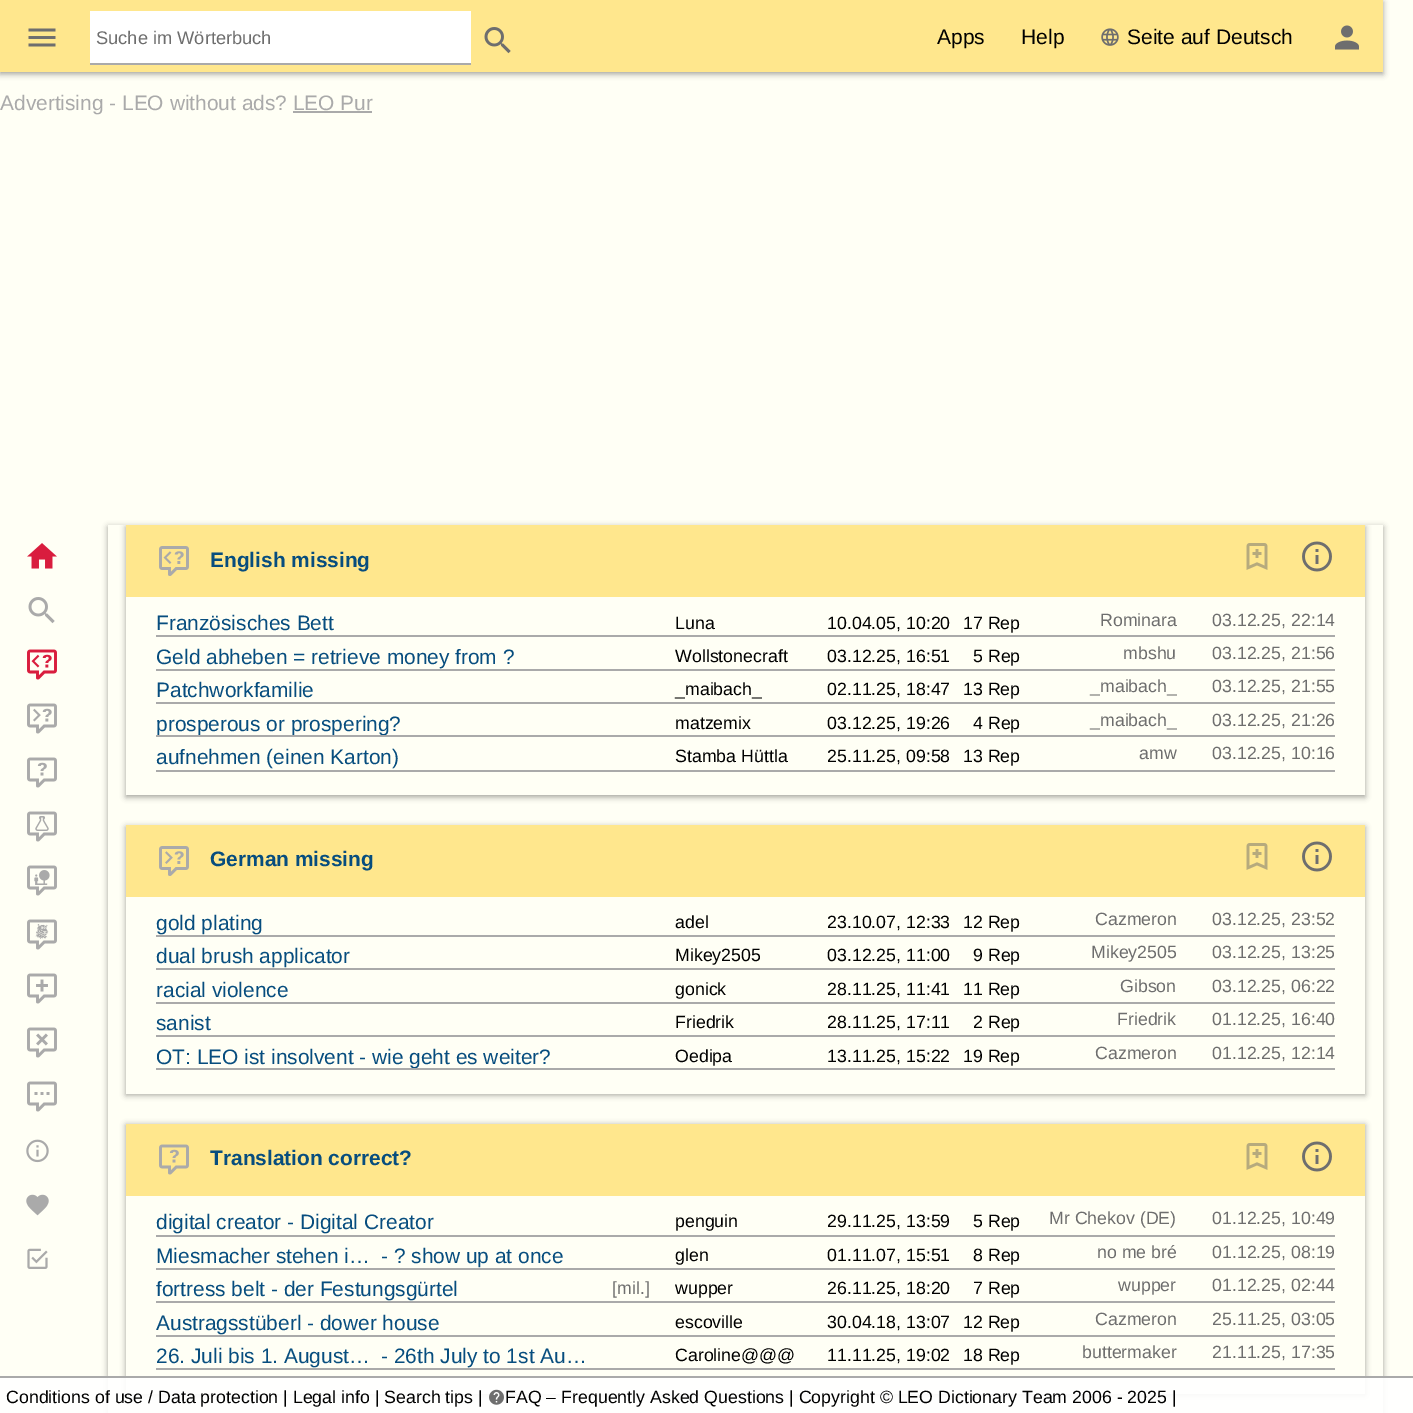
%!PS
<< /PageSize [1413 1413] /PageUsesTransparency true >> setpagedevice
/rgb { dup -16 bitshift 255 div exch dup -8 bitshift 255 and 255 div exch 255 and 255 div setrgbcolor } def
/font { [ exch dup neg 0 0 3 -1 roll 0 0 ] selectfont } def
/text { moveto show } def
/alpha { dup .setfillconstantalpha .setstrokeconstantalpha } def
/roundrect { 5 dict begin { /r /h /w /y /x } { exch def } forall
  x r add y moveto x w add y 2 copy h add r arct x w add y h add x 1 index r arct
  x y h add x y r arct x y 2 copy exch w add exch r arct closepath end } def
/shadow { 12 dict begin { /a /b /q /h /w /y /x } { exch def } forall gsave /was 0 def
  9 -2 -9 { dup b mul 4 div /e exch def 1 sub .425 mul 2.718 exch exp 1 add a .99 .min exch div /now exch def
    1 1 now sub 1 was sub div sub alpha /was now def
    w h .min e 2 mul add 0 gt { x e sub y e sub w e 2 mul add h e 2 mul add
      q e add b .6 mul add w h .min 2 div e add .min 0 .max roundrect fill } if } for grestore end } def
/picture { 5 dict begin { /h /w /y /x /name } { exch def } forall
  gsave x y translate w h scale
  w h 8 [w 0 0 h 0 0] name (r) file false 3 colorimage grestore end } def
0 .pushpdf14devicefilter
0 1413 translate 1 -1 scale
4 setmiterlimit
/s1 { /LiberationSans-Regular 18.25 font 16#6E6E6E rgb } def
/s2 { /LiberationSans-Regular 21 font 16#000000 rgb } def
/s3 { /LiberationSans-Regular 20.9 font 16#AAAAAA rgb } def
/s4 { /LiberationSans-Bold 20.9 font 16#074D7E rgb } def
/s5 { /LiberationSans-Regular 20.9 font 16#074D7E rgb } def
/s6 { /LiberationSans-Regular 17.75 font 16#000000 rgb } def
/s7 { /LiberationSans-Regular 17.75 font 16#6E6E6E rgb } def
16#FFFFF5 rgb
0 0 1413 1413 rectfill
16#000000 rgb
0 2 1383 72 0 3 0.37 shadow
16#FFE78D rgb
0 0 1383 72 rectfill
(pic1.raw) 28 28 28 19 picture
16#FFFFFF rgb
90 11 381 52 rectfill
16#AAAAAA rgb
90 63 381 2 rectfill
s1
(Suche im Wörterbuch) 96 44 text
(pic2.raw) 484 27 27 27 picture
s2
(Apps) 937 44 text
(Help) 1021 44 text
(pic3.raw) 1101 28 18 18 picture
(Seite auf Deutsch) 1127 44 text
(pic4.raw) 1335 25 24 25 picture
s3
(Advertising - LEO without ads? LEO Pur) 0 110 text
293 111 79 2 rectfill
(pic5.raw) 27 543 30 26 picture
(pic6.raw) 28 597 27 27 picture
(pic7.raw) 27 649 30 31 picture
(pic8.raw) 27 703 30 31 picture
(pic9.raw) 27 757 30 31 picture
(pic10.raw) 27 811 30 31 picture
(pic11.raw) 27 865 30 31 picture
(pic12.raw) 27 919 30 31 picture
(pic13.raw) 27 973 30 31 picture
(pic14.raw) 27 1027 30 31 picture
(pic15.raw) 27 1081 30 31 picture
(pic16.raw) 26 1139 23 24 picture
(pic17.raw) 26 1194 23 22 picture
(pic18.raw) 27 1248 21 21 picture
gsave
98 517 moveto 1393 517 lineto 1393 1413 lineto 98 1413 lineto closepath 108 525 moveto 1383 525 lineto 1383 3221 lineto 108 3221 lineto closepath eoclip newpath
16#000000 rgb
108 527 1275 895 0 3 0.37 shadow
grestore
gsave
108 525 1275 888 rectclip
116 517 moveto 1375 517 lineto 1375 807 lineto 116 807 lineto closepath 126 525 moveto 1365 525 lineto 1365 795 lineto 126 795 lineto closepath eoclip newpath
16#000000 rgb
126 527 1239 270 0 3 0.37 shadow
grestore
16#FFE78D rgb
126 525 1239 72 rectfill
(pic19.raw) 159 546 30 30 picture
s4
(English missing) 210 567 text
(pic20.raw) 1246 543 22 27 picture
(pic21.raw) 1302 541 30 31 picture
16#AAAAAA rgb
156 635 1179 2 rectfill
s5
(Französisches Bett) 156 630 text
s6
(Luna) 675 629 text
(10.04.05, 10:20) 827 629 text
(17 Rep) 963 629 text
s7
(Rominara) 1100 626 text
(03.12.25, 22:14) 1212 626 text
16#AAAAAA rgb
156 669 1179 2 rectfill
s5
(Geld abheben = retrieve money from ?) 156 664 text
s6
(Wollstonecraft) 675 662 text
(03.12.25, 16:51) 827 662 text
(5 Rep) 973 662 text
s7
(mbshu) 1123 659 text
(03.12.25, 21:56) 1212 659 text
16#AAAAAA rgb
156 702 1179 2 rectfill
s5
(Patchworkfamilie) 156 697 text
s6
(_maibach_) 675 695 text
(02.11.25, 18:47) 827 695 text
(13 Rep) 963 695 text
s7
(_maibach_) 1090 692 text
(03.12.25, 21:55) 1212 692 text
16#AAAAAA rgb
156 735 1179 2 rectfill
gsave
156 704 450 31 rectclip
s5
(prosperous or prospering?) 156 731 text
grestore
s6
(matzemix) 675 729 text
(03.12.25, 19:26) 827 729 text
(4 Rep) 973 729 text
s7
(_maibach_) 1090 726 text
(03.12.25, 21:26) 1212 726 text
16#AAAAAA rgb
156 770 1179 2 rectfill
s5
(aufnehmen \(einen Karton\)) 156 764 text
s6
(Stamba Hüttla) 675 762 text
(25.11.25, 09:58) 827 762 text
(13 Rep) 963 762 text
s7
(amw) 1139 759 text
(03.12.25, 10:16) 1212 759 text
gsave
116 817 moveto 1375 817 lineto 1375 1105 lineto 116 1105 lineto closepath 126 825 moveto 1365 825 lineto 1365 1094 lineto 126 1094 lineto closepath eoclip newpath
16#000000 rgb
126 827 1239 268 0 3 0.37 shadow
grestore
16#FFE78D rgb
126 825 1239 72 rectfill
(pic22.raw) 159 846 30 30 picture
s4
(German missing) 210 866 text
(pic20.raw) 1246 843 22 27 picture
(pic21.raw) 1302 841 30 31 picture
16#AAAAAA rgb
156 935 1179 2 rectfill
s5
(gold plating) 156 930 text
s6
(adel) 675 928 text
(23.10.07, 12:33) 827 928 text
(12 Rep) 963 928 text
s7
(Cazmeron) 1095 925 text
(03.12.25, 23:52) 1212 925 text
16#AAAAAA rgb
156 968 1179 2 rectfill
s5
(dual brush applicator) 156 963 text
s6
(Mikey2505) 675 961 text
(03.12.25, 11:00) 827 961 text
(9 Rep) 973 961 text
s7
(Mikey2505) 1091 958 text
(03.12.25, 13:25) 1212 958 text
16#AAAAAA rgb
156 1002 1179 2 rectfill
s5
(racial violence) 156 997 text
s6
(gonick) 675 995 text
(28.11.25, 11:41) 827 995 text
(11 Rep) 963 995 text
s7
(Gibson) 1120 992 text
(03.12.25, 06:22) 1212 992 text
16#AAAAAA rgb
156 1035 1179 2 rectfill
s5
(sanist) 156 1030 text
s6
(Friedrik) 675 1028 text
(28.11.25, 17:11) 827 1028 text
(2 Rep) 973 1028 text
s7
(Friedrik) 1117 1025 text
(01.12.25, 16:40) 1212 1025 text
16#AAAAAA rgb
156 1068 1179 2 rectfill
gsave
156 1037 450 31 rectclip
s5
(OT: LEO ist insolvent - wie geht es weiter?) 156 1064 text
grestore
s6
(Oedipa) 675 1062 text
(13.11.25, 15:22) 827 1062 text
(19 Rep) 963 1062 text
s7
(Cazmeron) 1095 1059 text
(01.12.25, 12:14) 1212 1059 text
gsave
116 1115 moveto 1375 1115 lineto 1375 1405 lineto 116 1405 lineto closepath 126 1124 moveto 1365 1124 lineto 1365 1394 lineto 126 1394 lineto closepath eoclip newpath
16#000000 rgb
126 1125 1239 270 0 3 0.37 shadow
grestore
16#FFE78D rgb
126 1124 1239 72 rectfill
(pic23.raw) 159 1144 30 31 picture
s4
(Translation correct?) 210 1165 text
(pic20.raw) 1246 1143 22 27 picture
(pic21.raw) 1302 1141 30 31 picture
16#AAAAAA rgb
156 1235 1179 2 rectfill
s5
(digital creator - Digital Creator) 156 1229 text
s6
(penguin) 675 1227 text
(29.11.25, 13:59) 827 1227 text
(5 Rep) 973 1227 text
s7
(Mr Chekov \(DE\)) 1049 1224 text
(01.12.25, 10:49) 1212 1224 text
16#AAAAAA rgb
156 1268 1179 2 rectfill
s5
(Miesmacher stehen i…) 156 1263 text
(- ? show up at once) 381 1263 text
s6
(glen) 675 1261 text
(01.11.07, 15:51) 827 1261 text
(8 Rep) 973 1261 text
s7
(no me bré) 1097 1258 text
(01.12.25, 08:19) 1212 1258 text
16#AAAAAA rgb
156 1301 1179 2 rectfill
s5
(fortress belt - der Festungsgürtel) 156 1296 text
s7
([mil.]) 612 1294 text
s6
(wupper) 675 1294 text
(26.11.25, 18:20) 827 1294 text
(7 Rep) 973 1294 text
s7
(wupper) 1118 1291 text
(01.12.25, 02:44) 1212 1291 text
16#AAAAAA rgb
156 1335 1179 2 rectfill
s5
(Austragsstüberl - dower house) 156 1330 text
s6
(escoville) 675 1328 text
(30.04.18, 13:07) 827 1328 text
(12 Rep) 963 1328 text
s7
(Cazmeron) 1095 1325 text
(25.11.25, 03:05) 1212 1325 text
16#AAAAAA rgb
156 1368 1179 2 rectfill
s5
(26. Juli bis 1. August…) 156 1363 text
(- 26th July to 1st Au…) 381 1363 text
s6
(Caroline@@@) 675 1361 text
(11.11.25, 19:02) 827 1361 text
(18 Rep) 963 1361 text
s7
(buttermaker) 1082 1358 text
(21.11.25, 17:35) 1212 1358 text
0.9 alpha
16#FFFFFF rgb
0 1378 1413 35 rectfill
1 alpha
16#AAAAAA rgb
0 1376 1413 2 rectfill
s6
(Conditions of use / Data protection | Legal info | Search tips |) 6 1403 text
(pic24.raw) 489 1389 15 16 picture
(FAQ – Frequently Asked Questions | Copyright © LEO Dictionary Team 2006 - 2025 |) 505 1403 text
.poppdf14devicefilter showpage
